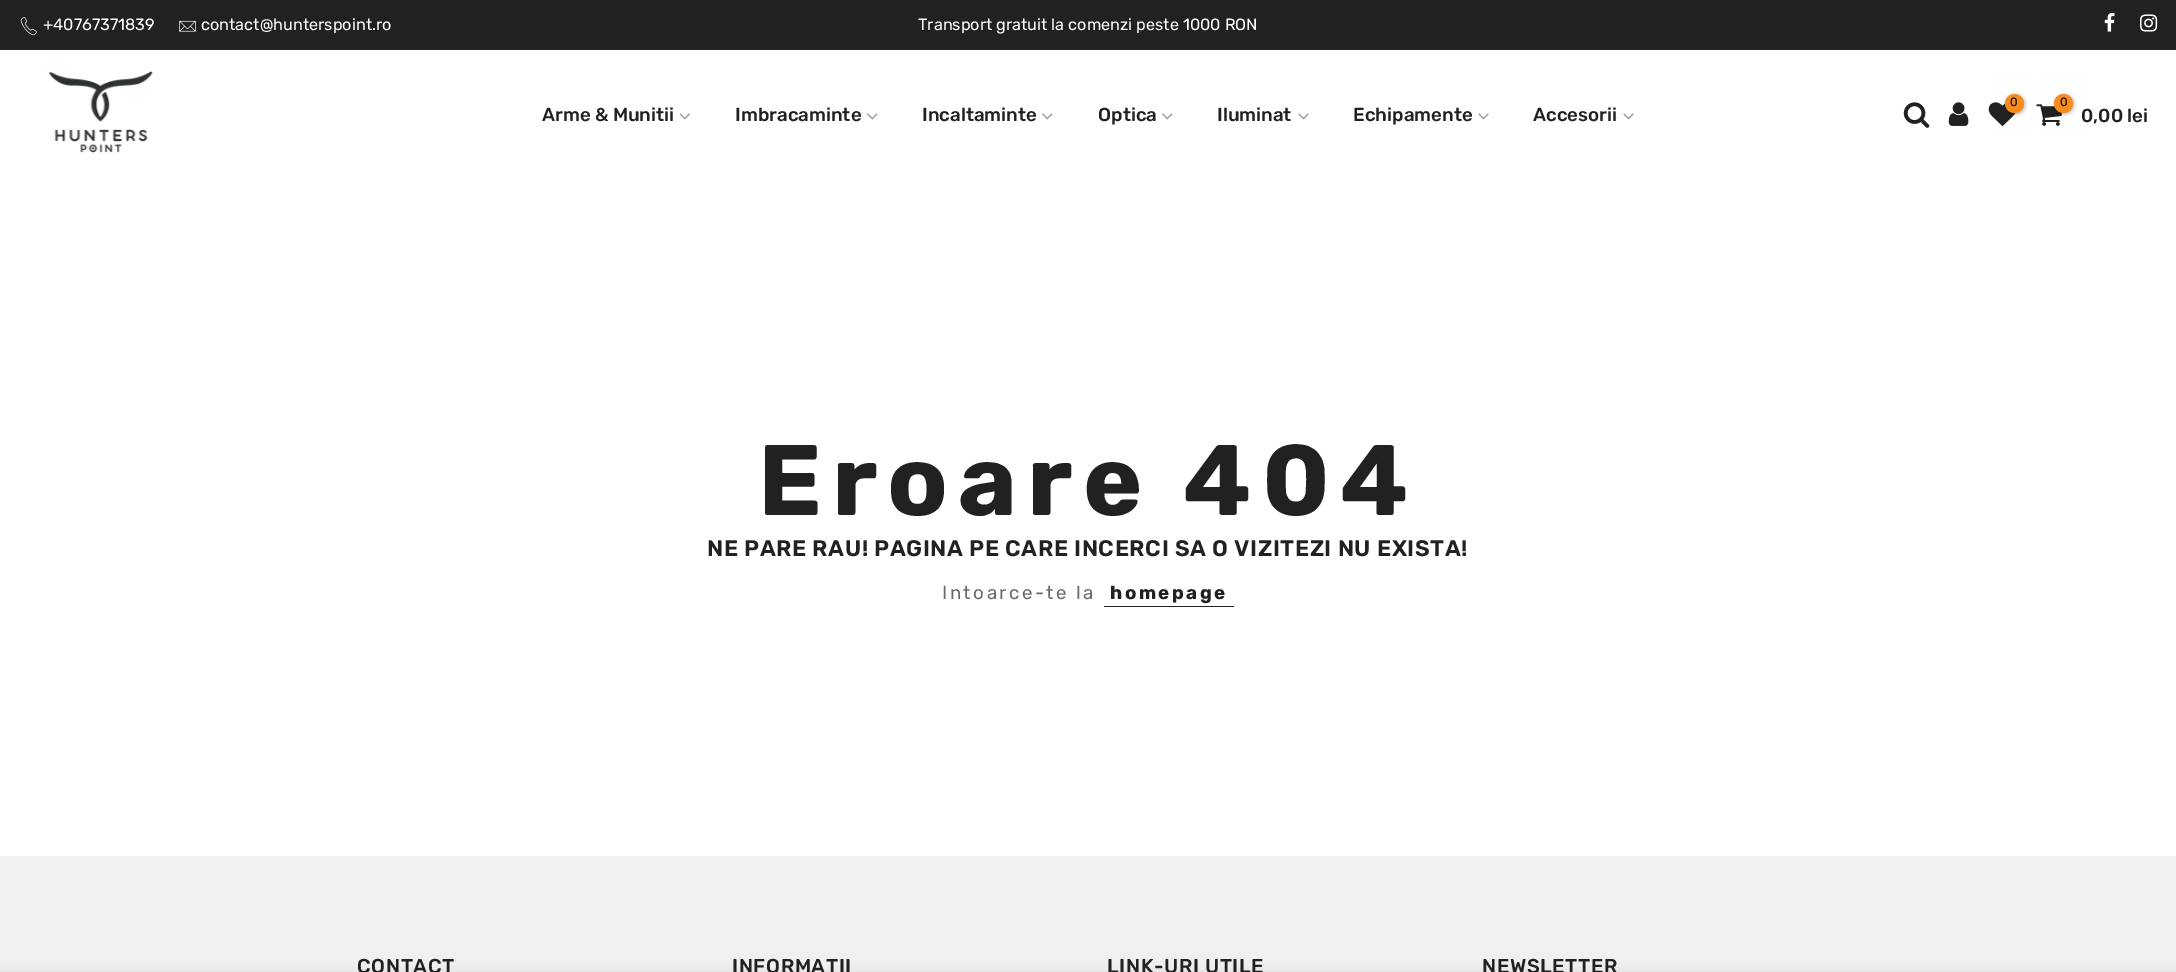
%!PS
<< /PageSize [2176 972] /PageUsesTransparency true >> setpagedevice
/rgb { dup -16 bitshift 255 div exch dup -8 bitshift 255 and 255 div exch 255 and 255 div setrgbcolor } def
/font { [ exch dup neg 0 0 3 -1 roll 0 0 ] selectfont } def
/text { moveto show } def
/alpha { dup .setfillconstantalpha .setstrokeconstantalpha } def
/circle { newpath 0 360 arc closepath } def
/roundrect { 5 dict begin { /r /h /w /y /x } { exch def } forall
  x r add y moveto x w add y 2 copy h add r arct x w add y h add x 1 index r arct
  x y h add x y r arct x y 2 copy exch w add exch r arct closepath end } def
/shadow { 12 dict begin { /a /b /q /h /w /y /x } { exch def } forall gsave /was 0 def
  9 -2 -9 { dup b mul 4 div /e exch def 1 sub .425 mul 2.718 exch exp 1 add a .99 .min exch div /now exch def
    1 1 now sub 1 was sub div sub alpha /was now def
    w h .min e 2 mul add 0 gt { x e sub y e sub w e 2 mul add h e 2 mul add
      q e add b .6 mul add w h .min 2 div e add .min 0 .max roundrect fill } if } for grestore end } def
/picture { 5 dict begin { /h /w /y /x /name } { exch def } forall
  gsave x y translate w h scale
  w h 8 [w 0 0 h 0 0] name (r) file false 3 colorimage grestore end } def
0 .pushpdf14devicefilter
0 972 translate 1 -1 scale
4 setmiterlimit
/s1 { /Rubik-Regular 16.25 font 16#FFFFFF rgb } def
/s2 { /Rubik-Medium 18.75 font 16#212121 rgb } def
/s3 { /Rubik-Regular 12 font 16#000000 rgb } def
16#FFFFFF rgb
0 0 2176 972 rectfill
16#212121 rgb
0 0 2176 50 rectfill
(pic1.raw) 20 17 17 19 picture
s1
(+40767371839) 43 30 text
(pic2.raw) 179 20 17 12 picture
(contact@hunterspoint.ro) 201 30 text
(Transport gratuit la comenzi peste 1000 RON) 918 30 text
(pic3.raw) 2104 13 11 19 picture
(pic4.raw) 2140 14 18 18 picture
(pic5.raw) 48 71 105 82 picture
s2
(Arme & Munitii) 542 121 text
(pic6.raw) 679 113 11 7 picture
(Imbracaminte) 735 121 text
(pic7.raw) 867 113 11 7 picture
(Incaltaminte) 922 121 text
(pic7.raw) 1042 113 11 7 picture
(Optica) 1098 121 text
(pic7.raw) 1162 113 11 7 picture
(Iluminat) 1217 121 text
(pic8.raw) 1298 113 11 7 picture
(Echipamente) 1353 121 text
(pic8.raw) 1478 113 11 7 picture
(Accesorii) 1533 121 text
(pic8.raw) 1623 113 11 7 picture
(pic9.raw) 1903 102 27 26 picture
(pic10.raw) 1948 102 21 24 picture
(pic11.raw) 1988 102 28 24 picture
16#000000 rgb
2006 95 19 19 9.5 2 0.3 shadow
16#F78B1C rgb
2014.5 103.5 9.5 circle fill
s3
(0) 2010 106 text
(pic12.raw) 2036 104 26 22 picture
2055 95 19 19 9.5 2 0.3 shadow
16#F78B1C rgb
2063.5 103.5 9.5 circle fill
s3
(0) 2060 106 text
s2
(0,00 lei) 2081 122 text
/Rubik-Bold 100 font
758 515 moveto 10 0 (Eroare 404) ashow
/Rubik-SemiBold 22.5 font
707 556 moveto 0.62 0 (NE PARE RAU! PAGINA PE CARE INCERCI SA O VIZITEZI NU EXISTA!) ashow
/Rubik-Regular 18.75 font
16#696969 rgb
942 599 moveto 2.5 0 (Intoarce-te la) ashow
/Rubik-Bold 18.75 font
16#212121 rgb
1110 599 moveto 2.5 0 (homepage) ashow
16#222222 rgb
1104 606 130 1 rectfill
16#F0F0F0 rgb
0 856 2176 116 rectfill
/Rubik-Medium 20 font
16#212121 rgb
357 973 moveto 0.62 0 (CONTACT) ashow
732 973 moveto 0.62 0 (INFORMATII) ashow
1107 973 moveto 0.62 0 (LINK-URI UTILE) ashow
1482 973 moveto 0.62 0 (NEWSLETTER) ashow
16#000000 rgb
0 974 2176 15 0 5.5 0.14 shadow
.poppdf14devicefilter showpage
